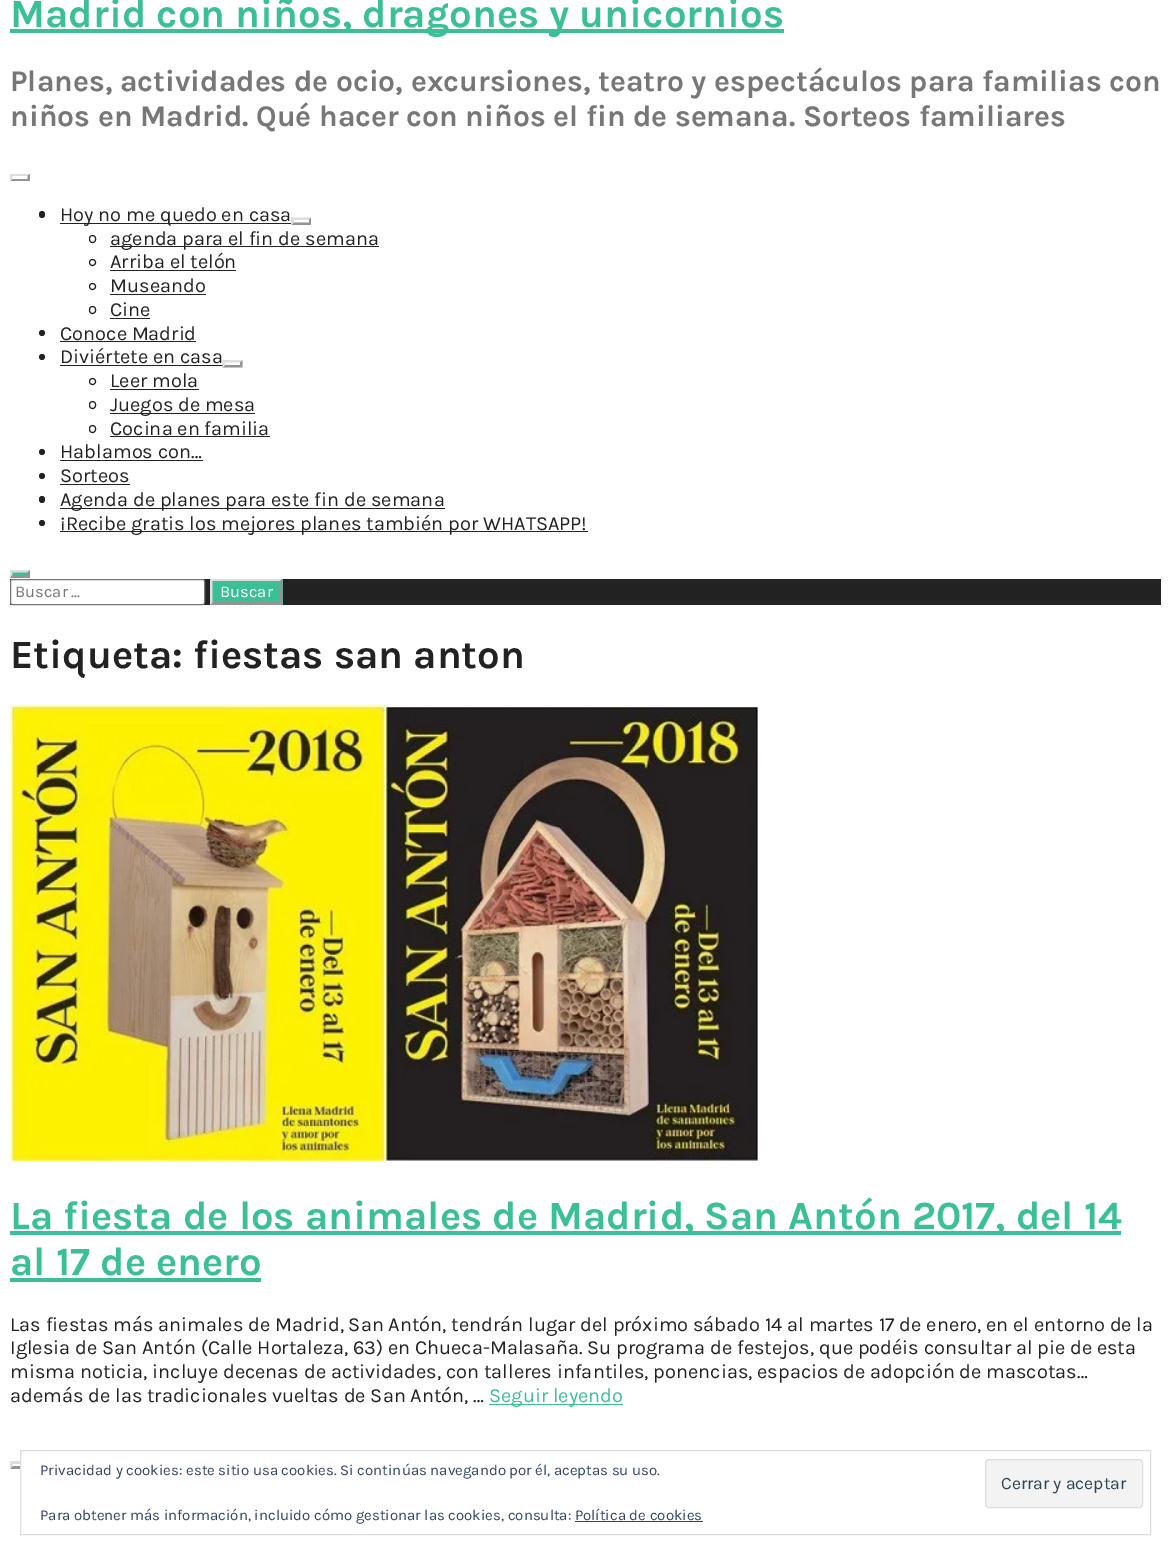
%!PS
<< /PageSize [1171 1554] >> setpagedevice
/rgb { dup -16 bitshift 255 div exch dup -8 bitshift 255 and 255 div exch 255 and 255 div setrgbcolor } def
/font { [ exch dup neg 0 0 3 -1 roll 0 0 ] selectfont } def
/text { moveto show } def
/circle { newpath 0 360 arc closepath } def
/roundrect { 5 dict begin { /r /h /w /y /x } { exch def } forall
  x r add y moveto x w add y 2 copy h add r arct x w add y h add x 1 index r arct
  x y h add x y r arct x y 2 copy exch w add exch r arct closepath end } def
/picture { 5 dict begin { /h /w /y /x /name } { exch def } forall
  gsave x y translate w h scale
  w h 8 [w 0 0 h 0 0] name (r) file false 3 colorimage grestore end } def
0 1554 translate 1 -1 scale
4 setmiterlimit
/s1 { /Karla-Bold 40 font 16#3ABF97 rgb } def
/s2 { /Karla-Bold 30 font 16#777777 rgb } def
/s3 { /Karla-Regular 20 font 16#222222 rgb } def
/s4 { /Karla-Regular 16.5 font 16#777777 rgb } def
/s5 { /Karla-Regular 16.5 font 16#FFFFFF rgb } def
/s6 { /Karla-Bold 40 font 16#222222 rgb } def
/s7 { /Karla-Regular 20 font 16#3ABF97 rgb } def
/s8 { /Karla-Regular 15 font 16#2E4467 rgb } def
/s9 { /Karla-Regular 17.5 font 16#2E4453 rgb } def
16#FFFFFF rgb
0 0 1171 1554 rectfill
16#3ABF97 rgb
10 29 774 4 rectfill
s1
(Madrid con niños, dragones y unicornios) 10 27 text
s2
(Planes, actividades de ocio, excursiones, teatro y espectáculos para familias con) 10 91 text
(niños en Madrid. Qué hacer con niños el fin de semana. Sorteos familiares) 10 126 text
16#DDDDDD rgb
10 174 moveto 30 174 lineto 27.5 176 lineto 12.5 176 lineto closepath fill
16#939393 rgb
30 174 moveto 30 181 lineto 27.5 179 lineto 27.5 176 lineto closepath fill
30 181 moveto 10 181 lineto 12.5 179 lineto 27.5 179 lineto closepath fill
16#DDDDDD rgb
10 181 moveto 10 174 lineto 12.5 176 lineto 12.5 179 lineto closepath fill
16#222222 rgb
39 211 6 7 3 roundrect fill
60 223 231 1 rectfill
s3
(Hoy no me quedo en casa) 60 221 text
16#DDDDDD rgb
291 217.5 moveto 311 217.5 lineto 309 220 lineto 294 220 lineto closepath fill
16#939393 rgb
311 217.5 moveto 311 225 lineto 309 222.5 lineto 309 220 lineto closepath fill
311 225 moveto 291 225 lineto 294 222.5 lineto 309 222.5 lineto closepath fill
16#DDDDDD rgb
291 225 moveto 291 217.5 lineto 294 220 lineto 294 222.5 lineto closepath fill
16#222222 rgb
89.5 235.5 6 7 3 roundrect stroke
110 246 269 1 rectfill
(agenda para el fin de semana) 110 245 text
92.5 262.5 3 circle stroke
(Arriba el telón) 110 268 text
110 270 126 1 rectfill
92.5 286.5 3 circle stroke
(Museando) 110 292 text
110 294 96 1 rectfill
89.5 306.5 6 7 3 roundrect stroke
(Cine) 110 316 text
110 318 40 1 rectfill
42 333 3 circle fill
(Conoce Madrid) 60 340 text
60 341 136 1 rectfill
42 357 3 circle fill
(Diviértete en casa) 60 363 text
60 365 163 1 rectfill
16#DDDDDD rgb
222.5 360 moveto 242.5 360 lineto 240 362.5 lineto 225 362.5 lineto closepath fill
16#939393 rgb
242.5 360 moveto 242.5 367.5 lineto 240 365 lineto 240 362.5 lineto closepath fill
242.5 367.5 moveto 222.5 367.5 lineto 225 365 lineto 240 365 lineto closepath fill
16#DDDDDD rgb
222.5 367.5 moveto 222.5 360 lineto 225 362.5 lineto 225 365 lineto closepath fill
16#222222 rgb
92.5 381.5 3 circle stroke
(Leer mola) 110 387 text
110 389 89 1 rectfill
89.5 401.5 6 7 3 roundrect stroke
110 413 145 1 rectfill
(Juegos de mesa) 110 411 text
89.5 425.5 6 7 3 roundrect stroke
(Cocina en familia) 110 435 text
110 436 160 1 rectfill
42 452 3 circle fill
(Hablamos con…) 60 458 text
60 460 143 1 rectfill
42 476 3 circle fill
(Sorteos) 60 482 text
60 484 70 1 rectfill
39 496 6 7 3 roundrect fill
60 508 385 1 rectfill
(Agenda de planes para este fin de semana) 60 506 text
42 523 3 circle fill
60 531 528 1 rectfill
(¡Recibe gratis los mejores planes también por WHATSAPP!) 60 530 text
16#3ABF97 rgb
10 570 20 8 rectfill
16#DDDDDD rgb
10 570 moveto 30 570 lineto 27.5 572.5 lineto 12.5 572.5 lineto closepath fill
16#939393 rgb
30 570 moveto 30 577.5 lineto 27.5 575 lineto 27.5 572.5 lineto closepath fill
30 577.5 moveto 10 577.5 lineto 12.5 575 lineto 27.5 575 lineto closepath fill
16#DDDDDD rgb
10 577.5 moveto 10 570 lineto 12.5 572.5 lineto 12.5 575 lineto closepath fill
16#222222 rgb
10 579 1151 26 rectfill
16#FFFFFF rgb
10.5 579.5 194 25 2 roundrect gsave fill grestore
16#767676 rgb
stroke
s4
(Buscar …) 15 597 text
16#3ABF97 rgb
210 579 73 26 rectfill
16#DDDDDD rgb
210 579 moveto 282 579 lineto 280 581 lineto 212 581 lineto closepath fill
16#939393 rgb
282.5 579 moveto 282.5 605 lineto 280 602.5 lineto 280 581 lineto closepath fill
282 605 moveto 210 605 lineto 212 602 lineto 280 602 lineto closepath fill
16#DDDDDD rgb
210 605 moveto 210 579 lineto 212.5 581 lineto 212.5 602.5 lineto closepath fill
s5
(Buscar) 220 597 text
s6
(Etiqueta: fiestas san anton) 10 668 text
(pic1.raw) 10 704 749 457 picture
16#3ABF97 rgb
10 1231 1111 4 rectfill
(La fiesta de los animales de Madrid, San Antón 2017, del 14) 10 1229 text
(al 17 de enero) 10 1275 text
10 1278 251 4 rectfill
s3
(Las fiestas más animales de Madrid, San Antón, tendrán lugar del próximo sábado 14 al martes 17 de enero, en el entorno de la) 10 1331 text
(Iglesia de San Antón \(Calle Hortaleza, 63\) en Chueca-Malasaña. Su programa de festejos, que podéis consultar al pie de esta) 10 1354 text
(misma noticia, incluye decenas de actividades, con talleres infantiles, ponencias, espacios de adopción de mascotas…) 10 1378 text
(además de las tradicionales vueltas de San Antón, …) 10 1402 text
16#3ABF97 rgb
489 1404 134 1 rectfill
(Seguir leyendo) 489 1402 text
16#DDDDDD rgb
10 1461 moveto 30 1461 lineto 27.5 1464 lineto 12.5 1464 lineto closepath fill
16#939393 rgb
30 1469 moveto 10 1469 lineto 12.5 1466 lineto 27.5 1466 lineto closepath fill
16#DDDDDD rgb
10 1469 moveto 10 1461 lineto 12.5 1464 lineto 12.5 1466 lineto closepath fill
16#FFFFFF rgb
21 1461 9 8 rectfill
16#DEDEDE rgb
20.5 1450.5 1130 84 rectstroke
s8
(Privacidad y cookies: este sitio usa cookies. Si continúas navegando por él, aceptas su uso.) 40 1475 text
16#F3F3F3 rgb
985.5 1459.5 157 48 3.5 roundrect gsave fill grestore
16#DEDEDE rgb
stroke
s9
(Cerrar y aceptar) 1001 1489 text
s8
(Para obtener más información, incluido cómo gestionar las cookies, consulta: Política de cookies) 40 1520 text
575 1521 128 1 rectfill
showpage
